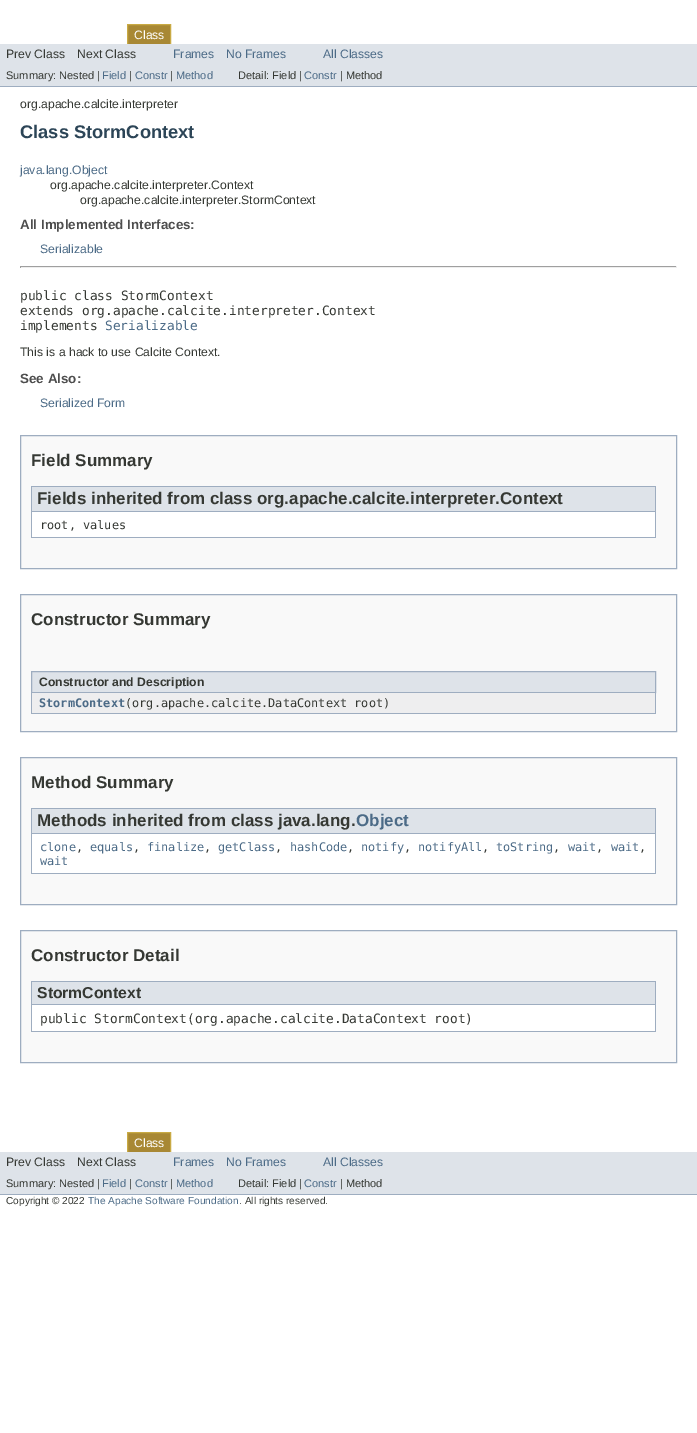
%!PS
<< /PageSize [697 1433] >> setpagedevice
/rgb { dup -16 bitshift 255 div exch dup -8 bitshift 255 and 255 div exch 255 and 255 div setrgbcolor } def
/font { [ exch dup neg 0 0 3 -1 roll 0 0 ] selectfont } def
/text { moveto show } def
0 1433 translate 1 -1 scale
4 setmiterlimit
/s1 { /LiberationSans-Regular 12.2 font 16#FFFFFF rgb } def
/s2 { /LiberationSans-Regular 12.2 font 16#353833 rgb } def
/s3 { /LiberationSans-Regular 12.2 font 16#4C6B87 rgb } def
/s4 { /LiberationSans-Regular 11 font 16#353833 rgb } def
/s5 { /LiberationSans-Regular 11 font 16#4C6B87 rgb } def
/s6 { /LiberationSans-Bold 18.25 font 16#2C4557 rgb } def
/s7 { /LiberationSans-Bold 13.4 font 16#4E4E4E rgb } def
/s8 { /DejaVuSansMono-Regular 12.85 font 16#353833 rgb } def
/s9 { /DejaVuSansMono-Regular 12.85 font 16#4C6B87 rgb } def
/s10 { /LiberationSans-Bold 17 font 16#353833 rgb } def
/s11 { /DejaVuSansMono-Regular 11.9 font 16#353833 rgb } def
/s12 { /LiberationSans-Bold 12.2 font 16#353833 rgb } def
/s13 { /DejaVuSansMono-Bold 11.9 font 16#4C6B87 rgb } def
/s14 { /LiberationSans-Bold 17 font 16#4C6B87 rgb } def
/s15 { /DejaVuSansMono-Regular 11.9 font 16#4C6B87 rgb } def
/s16 { /LiberationSans-Bold 15.75 font 16#353833 rgb } def
/s17 { /LiberationSans-Regular 10.1 font 16#353833 rgb } def
/s18 { /LiberationSans-Regular 10.1 font 16#4C6B87 rgb } def
16#FFFFFF rgb
0 0 697 1433 rectfill
16#A88834 rgb
128 25 42 19 rectfill
16#C9AA44 rgb
127.5 24.5 43 21 rectstroke
s1
(Class) 134 39 text
16#DEE3E9 rgb
0 44 697 42 rectfill
16#9EADC0 rgb
0 86 697 1 rectfill
s2
(Prev Class) 6 58 text
(Next Class) 77 58 text
s3
(Frames) 173 58 text
(No Frames) 226 58 text
(All Classes) 323 58 text
s4
(Summary: Nested |) 6 79 text
s5
(Field) 102 79 text
s4
(|) 129 79 text
s5
(Constr) 135 79 text
s4
(|) 170 79 text
s5
(Method) 176 79 text
s4
(Detail: Field |) 238 79 text
s5
(Constr) 304 79 text
s4
(| Method) 340 79 text
s2
(org.apache.calcite.interpreter) 20 108 text
s6
(Class StormContext) 20 138 text
s3
(java.lang.Object) 20 174 text
s2
(org.apache.calcite.interpreter.Context) 50 189 text
(org.apache.calcite.interpreter.StormContext) 80 204 text
s7
(All Implemented Interfaces:) 20 229 text
s3
(Serializable) 40 253 text
16#9F9F9F rgb
20 266 657 1 rectfill
16#EEEEEE rgb
676 266 1 2 rectfill
20 267 657 1 rectfill
16#9F9F9F rgb
20 266 1 2 rectfill
s8
(public class StormContext) 20 300 text
(extends org.apache.calcite.interpreter.Context) 20 315 text
(implements) 20 330 text
s9
(Serializable) 105 330 text
s2
(This is a hack to use Calcite Context.) 20 356 text
s7
(See Also:) 20 383 text
s3
(Serialized Form) 40 407 text
16#F9F9F9 rgb
20.5 435.5 moveto 676.5 435.5 lineto 676.5 568.5 lineto 20.5 568.5 lineto closepath gsave fill grestore
16#9EADC0 rgb
stroke
s10
(Field Summary) 31 466 text
16#FFFFFF rgb
32 512 623 25 rectfill
16#9EADC0 rgb
655 486 1 52 rectfill
31 537 625 1 rectfill
31 486 1 52 rectfill
16#DEE3E9 rgb
32 487 623 24 rectfill
16#9EADC0 rgb
32 486 623 1 rectfill
32 511 623 1 rectfill
s10
(Fields inherited from class org.apache.calcite.interpreter.Context) 37 504 text
s11
(root, values) 40 529 text
16#F9F9F9 rgb
20.5 594.5 moveto 676.5 594.5 lineto 676.5 731.5 lineto 20.5 731.5 lineto closepath gsave fill grestore
16#9EADC0 rgb
stroke
s10
(Constructor Summary) 31 625 text
16#9EADC0 rgb
31 713 625 1 rectfill
16#DEE3E9 rgb
31.5 671.5 moveto 655.5 671.5 lineto 655.5 692.5 lineto 31.5 692.5 lineto closepath gsave fill grestore
16#9EADC0 rgb
stroke
s12
(Constructor and Description) 39 686 text
16#EEEEEF rgb
32 693 623 20 rectfill
16#9EADC0 rgb
655 693 1 20 rectfill
31 693 1 20 rectfill
s13
(StormContext) 39 707 text
s11
(\(org.apache.calcite.DataContext root\)) 125 707 text
16#F9F9F9 rgb
20.5 757.5 moveto 676.5 757.5 lineto 676.5 904.5 lineto 20.5 904.5 lineto closepath gsave fill grestore
16#9EADC0 rgb
stroke
s10
(Method Summary) 31 788 text
16#FFFFFF rgb
32 834 623 39 rectfill
16#9EADC0 rgb
655 808 1 66 rectfill
31 873 625 1 rectfill
31 808 1 66 rectfill
16#DEE3E9 rgb
32 809 623 24 rectfill
16#9EADC0 rgb
32 808 623 1 rectfill
32 833 623 1 rectfill
s10
(Methods inherited from class java.lang.) 37 826 text
s14
(Object) 356 826 text
s15
(clone) 40 851 text
s11
(,) 76 851 text
s15
(equals) 90 851 text
s11
(,) 133 851 text
s15
(finalize) 147 851 text
s11
(,) 204 851 text
s15
(getClass) 218 851 text
s11
(,) 275 851 text
s15
(hashCode) 290 851 text
s11
(,) 347 851 text
s15
(notify) 361 851 text
s11
(,) 404 851 text
s15
(notifyAll) 418 851 text
s11
(,) 482 851 text
s15
(toString) 496 851 text
s11
(,) 553 851 text
s15
(wait) 568 851 text
s11
(,) 596 851 text
s15
(wait) 611 851 text
s11
(,) 639 851 text
s15
(wait) 40 865 text
16#F9F9F9 rgb
20.5 930.5 moveto 676.5 930.5 lineto 676.5 1062.5 lineto 20.5 1062.5 lineto closepath gsave fill grestore
16#9EADC0 rgb
stroke
s10
(Constructor Detail) 31 961 text
16#FFFFFF rgb
32 1005 623 26 rectfill
16#9EADC0 rgb
655 981 1 51 rectfill
31 1031 625 1 rectfill
31 981 1 51 rectfill
16#DEE3E9 rgb
32 982 623 22 rectfill
16#9EADC0 rgb
32 981 623 1 rectfill
32 1004 623 1 rectfill
s16
(StormContext) 37 998 text
s8
(public StormContext\(org.apache.calcite.DataContext root\)) 40 1023 text
16#A88834 rgb
128 1133 42 19 rectfill
16#C9AA44 rgb
127.5 1132.5 43 21 rectstroke
s1
(Class) 134 1147 text
16#DEE3E9 rgb
0 1152 697 42 rectfill
16#9EADC0 rgb
0 1194 697 1 rectfill
s2
(Prev Class) 6 1166 text
(Next Class) 77 1166 text
s3
(Frames) 173 1166 text
(No Frames) 226 1166 text
(All Classes) 323 1166 text
s4
(Summary: Nested |) 6 1187 text
s5
(Field) 102 1187 text
s4
(|) 129 1187 text
s5
(Constr) 135 1187 text
s4
(|) 170 1187 text
s5
(Method) 176 1187 text
s4
(Detail: Field |) 238 1187 text
s5
(Constr) 304 1187 text
s4
(| Method) 340 1187 text
s17
(Copyright © 2022) 6 1204 text
s18
(The Apache Software Foundation) 88 1204 text
s17
(. All rights reserved.) 239 1204 text
showpage
